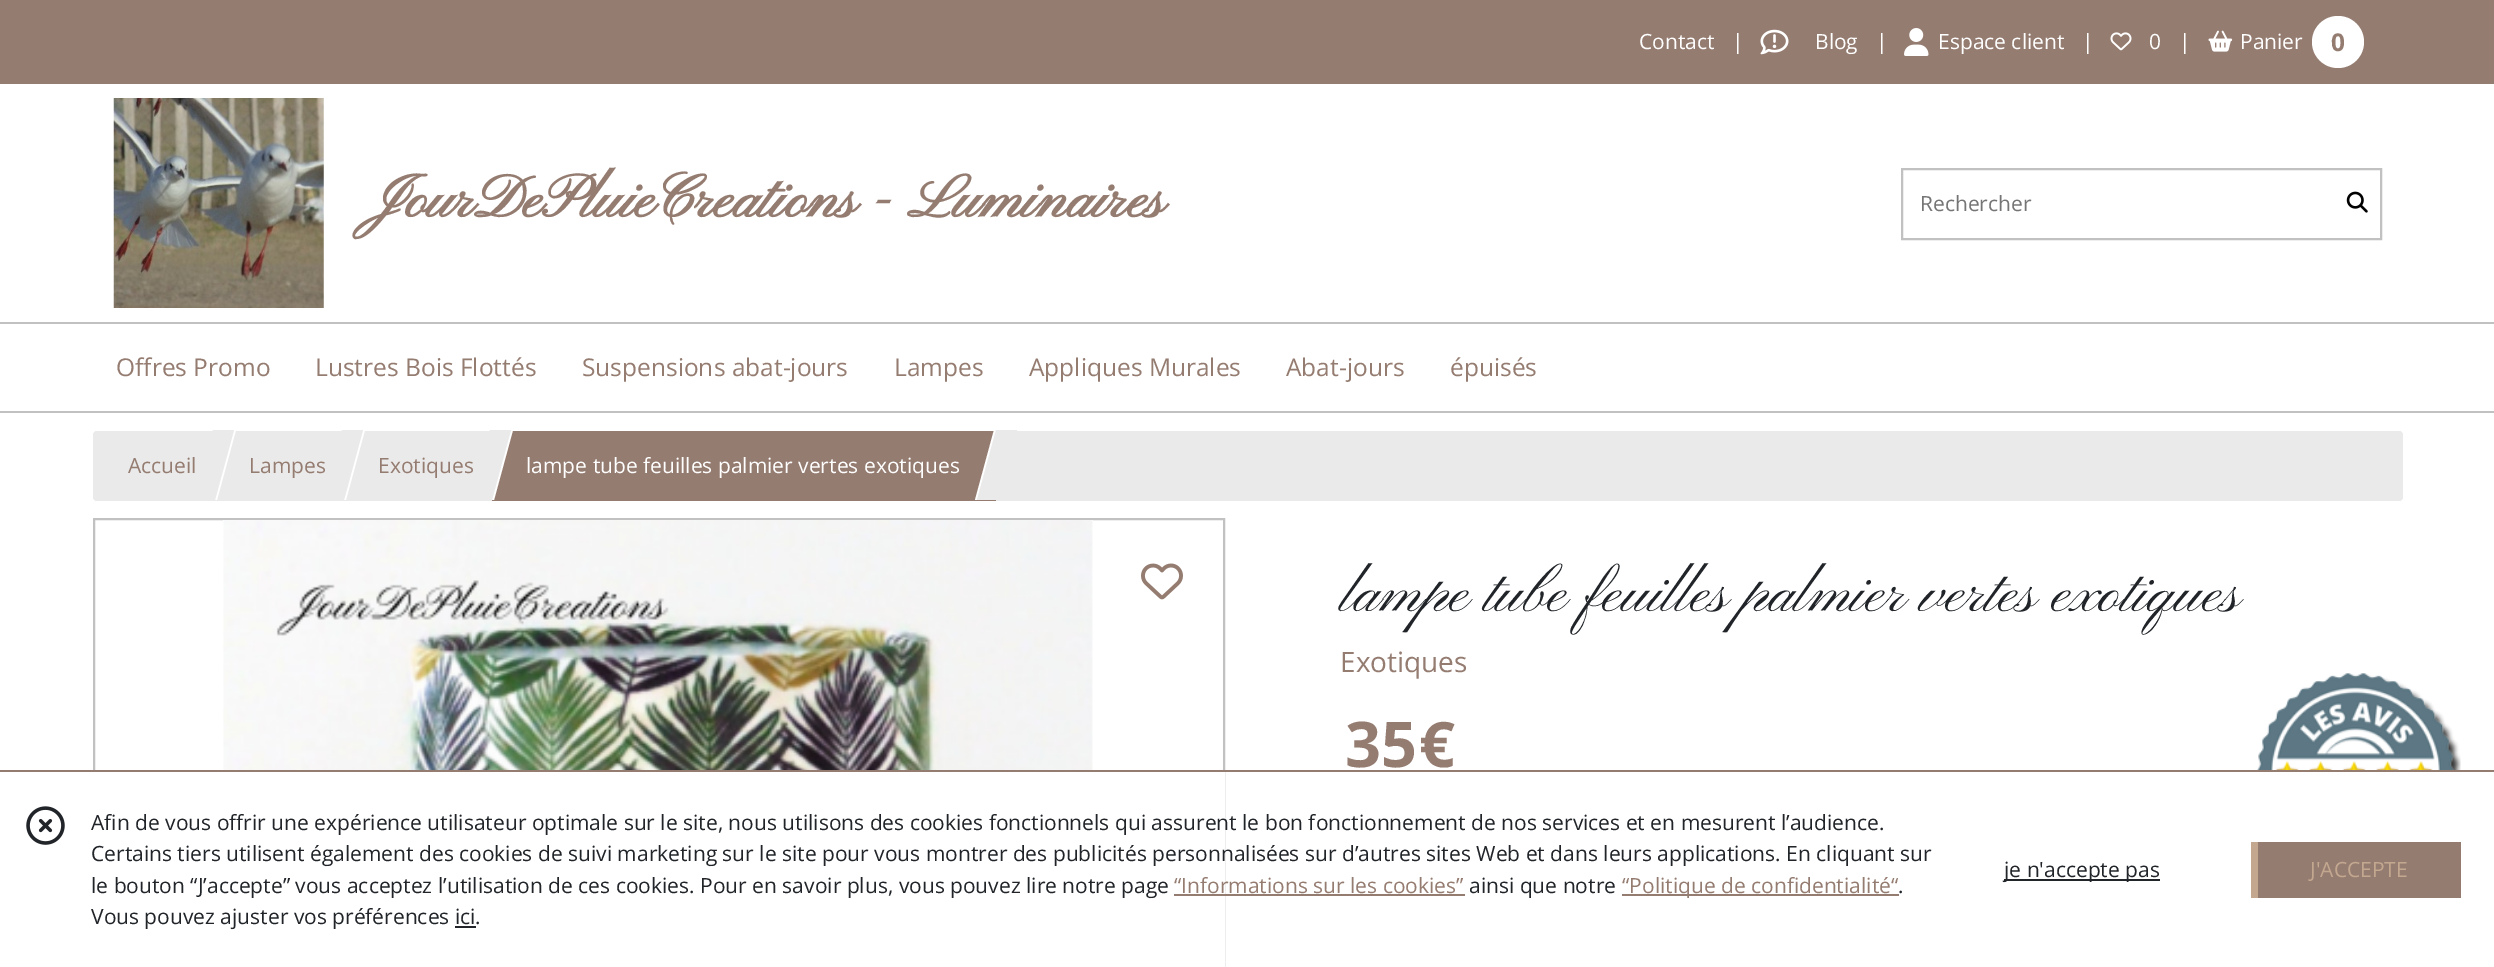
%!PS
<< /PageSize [2494 967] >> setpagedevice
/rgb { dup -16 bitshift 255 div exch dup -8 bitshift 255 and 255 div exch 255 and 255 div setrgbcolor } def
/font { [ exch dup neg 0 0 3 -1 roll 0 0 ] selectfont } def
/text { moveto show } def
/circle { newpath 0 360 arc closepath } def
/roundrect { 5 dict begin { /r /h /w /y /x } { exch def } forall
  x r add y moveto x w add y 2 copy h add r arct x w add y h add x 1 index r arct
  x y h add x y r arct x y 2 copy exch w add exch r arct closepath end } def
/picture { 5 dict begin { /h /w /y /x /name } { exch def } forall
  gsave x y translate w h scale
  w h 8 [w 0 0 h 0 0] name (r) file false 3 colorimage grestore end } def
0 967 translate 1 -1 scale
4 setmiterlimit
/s1 { /OpenSans-Regular 21 font 16#FFFFFF rgb } def
/s2 { /OpenSans-Bold 24.5 font 16#957C71 rgb } def
/s3 { /PinyonScript-Bold 61.25 font 16#957C71 rgb } def
/s4 { /OpenSans-Regular 21 font 16#757575 rgb } def
/s5 { /OpenSans-Regular 24.5 font 16#957C71 rgb } def
/s6 { /OpenSans-Regular 21 font 16#957C71 rgb } def
/s7 { /PinyonScript-Regular 61.6 font 16#212529 rgb } def
/s8 { /OpenSans-Regular 28 font 16#957C71 rgb } def
/s9 { /OpenSans-Bold 63 font 16#957C71 rgb } def
/s10 { /OpenSans-Regular 21 font 16#212529 rgb } def
/s11 { /OpenSans-Regular 21 font 16#C3A88F rgb } def
16#FFFFFF rgb
0 0 2494 967 rectfill
16#957C71 rgb
0 0 2494 84 rectfill
s1
(Contact) 1639 49 text
(|) 1732 49 text
(pic1.raw) 1760 29 29 26 picture
(Blog) 1815 49 text
(|) 1876 49 text
(pic2.raw) 1904 28 25 28 picture
(Espace client) 1938 49 text
(|) 2082 49 text
(pic3.raw) 2110 32 22 19 picture
(0) 2149 49 text
(|) 2179 49 text
(pic4.raw) 2208 30 25 22 picture
(Panier) 2240 49 text
2338 42 26 circle fill
s2
(0) 2331 51 text
(pic5.raw) 113 98 211 210 picture
s3
(JourDePluieCreations - Luminaires) 368 217 text
16#C1C1C1 rgb
2 setlinewidth
1902 169 479 70 rectstroke
s4
(Rechercher) 1920 211 text
(pic6.raw) 2346 191 22 22 picture
16#C1C1C1 rgb
0 322 2494 2 rectfill
0 411 2494 2 rectfill
s5
(Offres Promo) 116 376 text
(Lustres Bois Flottés) 315 376 text
(Suspensions abat-jours) 582 376 text
(Lampes) 894 376 text
(Appliques Murales) 1029 376 text
(Abat-jours) 1286 376 text
(épuisés) 1450 376 text
16#EAEAEA rgb
93 431 2310 70 4 roundrect fill
s6
(Accueil) 128 473 text
16#FFFFFF rgb
232 430 moveto 236 430 lineto 217 500 lineto 213 500 lineto closepath fill
16#EAEAEA rgb
213 430 moveto 234 430 lineto 215 500 lineto 194 500 lineto closepath fill
s6
(Lampes) 249 473 text
16#FFFFFF rgb
361 430 moveto 365 430 lineto 346 500 lineto 343 500 lineto closepath fill
16#EAEAEA rgb
342 430 moveto 363 430 lineto 344 500 lineto 323 500 lineto closepath fill
s6
(Exotiques) 378 473 text
492 431 504 70 rectfill
16#FFFFFF rgb
509 430 moveto 513 430 lineto 494 500 lineto 491 500 lineto closepath fill
16#EAEAEA rgb
490 430 moveto 511 430 lineto 492 500 lineto 471 500 lineto closepath fill
16#FFFFFF rgb
994 430 moveto 997 430 lineto 978 500 lineto 975 500 lineto closepath fill
(lampe tube feuilles palmier vertes exotiques) 526 473 text
16#EAEAEA rgb
996 430 moveto 1017 430 lineto 998 500 lineto 977 500 lineto closepath fill
16#C1C1C1 rgb
94 519 1130 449 rectstroke
(pic7.raw) 223 520 870 250 picture
(pic8.raw) 1141 563 42 37 picture
s7
(lampe tube feuilles palmier vertes exotiques) 1340 611 text
s8
(Exotiques) 1340 672 text
s9
(35) 1345 767 text
(€) 1419 767 text
(pic9.raw) 2256 673 205 97 picture
16#FFFFFF rgb
93 772 1132 195 rectfill
16#957C71 rgb
0 770 2494 2 rectfill
(pic10.raw) 26 806 39 39 picture
s10
(Afin de vous offrir une expérience utilisateur optimale sur le site, nous utilisons des cookies fonctionnels qui assurent le bon fonctionnement de nos services et en mesurent l’audience.) 91 830 text
(Certains tiers utilisent également des cookies de suivi marketing sur le site pour vous montrer des publicités personnalisées sur d’autres sites Web et dans leurs applications. En cliquant sur) 91 861 text
(le bouton “J’accepte” vous acceptez l’utilisation de ces cookies. Pour en savoir plus, vous pouvez lire notre page) 91 893 text
s6
(“Informations sur les cookies”) 1174 893 text
1174 894 291 2 rectfill
s10
(ainsi que notre) 1469 893 text
16#957C71 rgb
1622 894 277 2 rectfill
(“Politique de confidentialité“) 1622 893 text
s10
(.) 1898 893 text
(Vous pouvez ajuster vos préférences ici.) 91 924 text
455 926 21 2 rectfill
2004 879 156 2 rectfill
(je n'accepte pas) 2004 877 text
16#957C71 rgb
2258 842 203 56 rectfill
16#C3A88F rgb
2251 842 7 56 rectfill
(J'ACCEPTE) 2310 877 text
showpage
